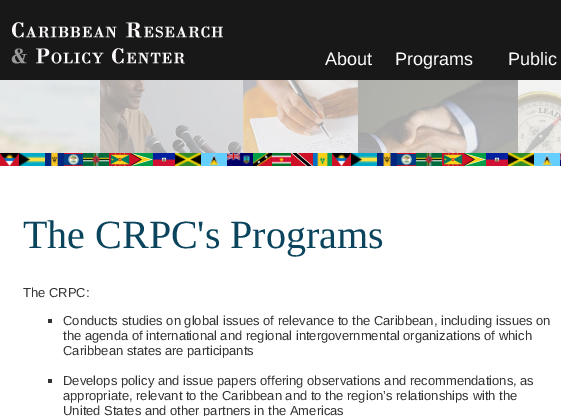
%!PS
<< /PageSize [561 416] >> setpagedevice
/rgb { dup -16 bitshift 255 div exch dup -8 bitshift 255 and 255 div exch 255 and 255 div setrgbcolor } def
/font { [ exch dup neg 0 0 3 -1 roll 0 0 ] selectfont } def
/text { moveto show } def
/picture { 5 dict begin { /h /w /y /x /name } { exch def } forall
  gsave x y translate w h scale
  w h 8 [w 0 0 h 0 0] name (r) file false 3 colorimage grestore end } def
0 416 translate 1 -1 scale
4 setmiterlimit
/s1 { /LiberationSans-Regular 18 font 16#FFFFFF rgb } def
/s2 { /LiberationSerif-Regular 40 font 16#0A455D rgb } def
/s3 { /LiberationSans-Regular 13 font 16#333333 rgb } def
16#EEEEEE rgb
0 0 561 416 rectfill
16#181818 rgb
0 0 561 80 rectfill
(pic1.raw) 11 22 212 42 picture
s1
(About) 325 65 text
(Programs) 395 65 text
(Public) 508 65 text
(pic2.raw) 0 80 561 73 picture
(pic3.raw) 0 153 19 13 picture
(pic4.raw) 19 153 26 13 picture
(pic5.raw) 45 153 19 13 picture
(pic6.raw) 64 153 19 13 picture
(pic7.raw) 83 153 26 13 picture
(pic8.raw) 109 153 22 13 picture
(pic9.raw) 131 153 22 13 picture
(pic10.raw) 153 153 22 13 picture
(pic11.raw) 175 153 26 13 picture
(pic12.raw) 201 153 26 13 picture
(pic13.raw) 227 153 26 13 picture
(pic14.raw) 253 153 19 13 picture
(pic15.raw) 272 153 19 13 picture
(pic16.raw) 291 153 22 13 picture
(pic17.raw) 313 153 19 13 picture
(pic3.raw) 332 153 19 13 picture
(pic4.raw) 351 153 26 13 picture
(pic18.raw) 377 153 20 13 picture
(pic6.raw) 397 153 19 13 picture
(pic7.raw) 416 153 26 13 picture
(pic8.raw) 442 153 22 13 picture
(pic9.raw) 464 153 22 13 picture
(pic10.raw) 486 153 22 13 picture
(pic11.raw) 508 153 26 13 picture
(pic12.raw) 534 153 26 13 picture
(pic19.raw) 560 153 1 13 picture
0 166 561 250 rectfill
s2
(The CRPC's Programs) 23 248 text
s3
(The CRPC:) 23 297 text
48 319 4 4 rectfill
(Conducts studies on global issues of relevance to the Caribbean, including issues on) 63 325 text
(the agenda of international and regional intergovernmental organizations of which) 63 340 text
(Caribbean states are participants) 63 355 text
48 379 4 4 rectfill
(Develops policy and issue papers offering observations and recommendations, as) 63 385 text
(appropriate, relevant to the Caribbean and to the region’s relationships with the) 63 400 text
(United States and other partners in the Americas) 63 415 text
showpage
